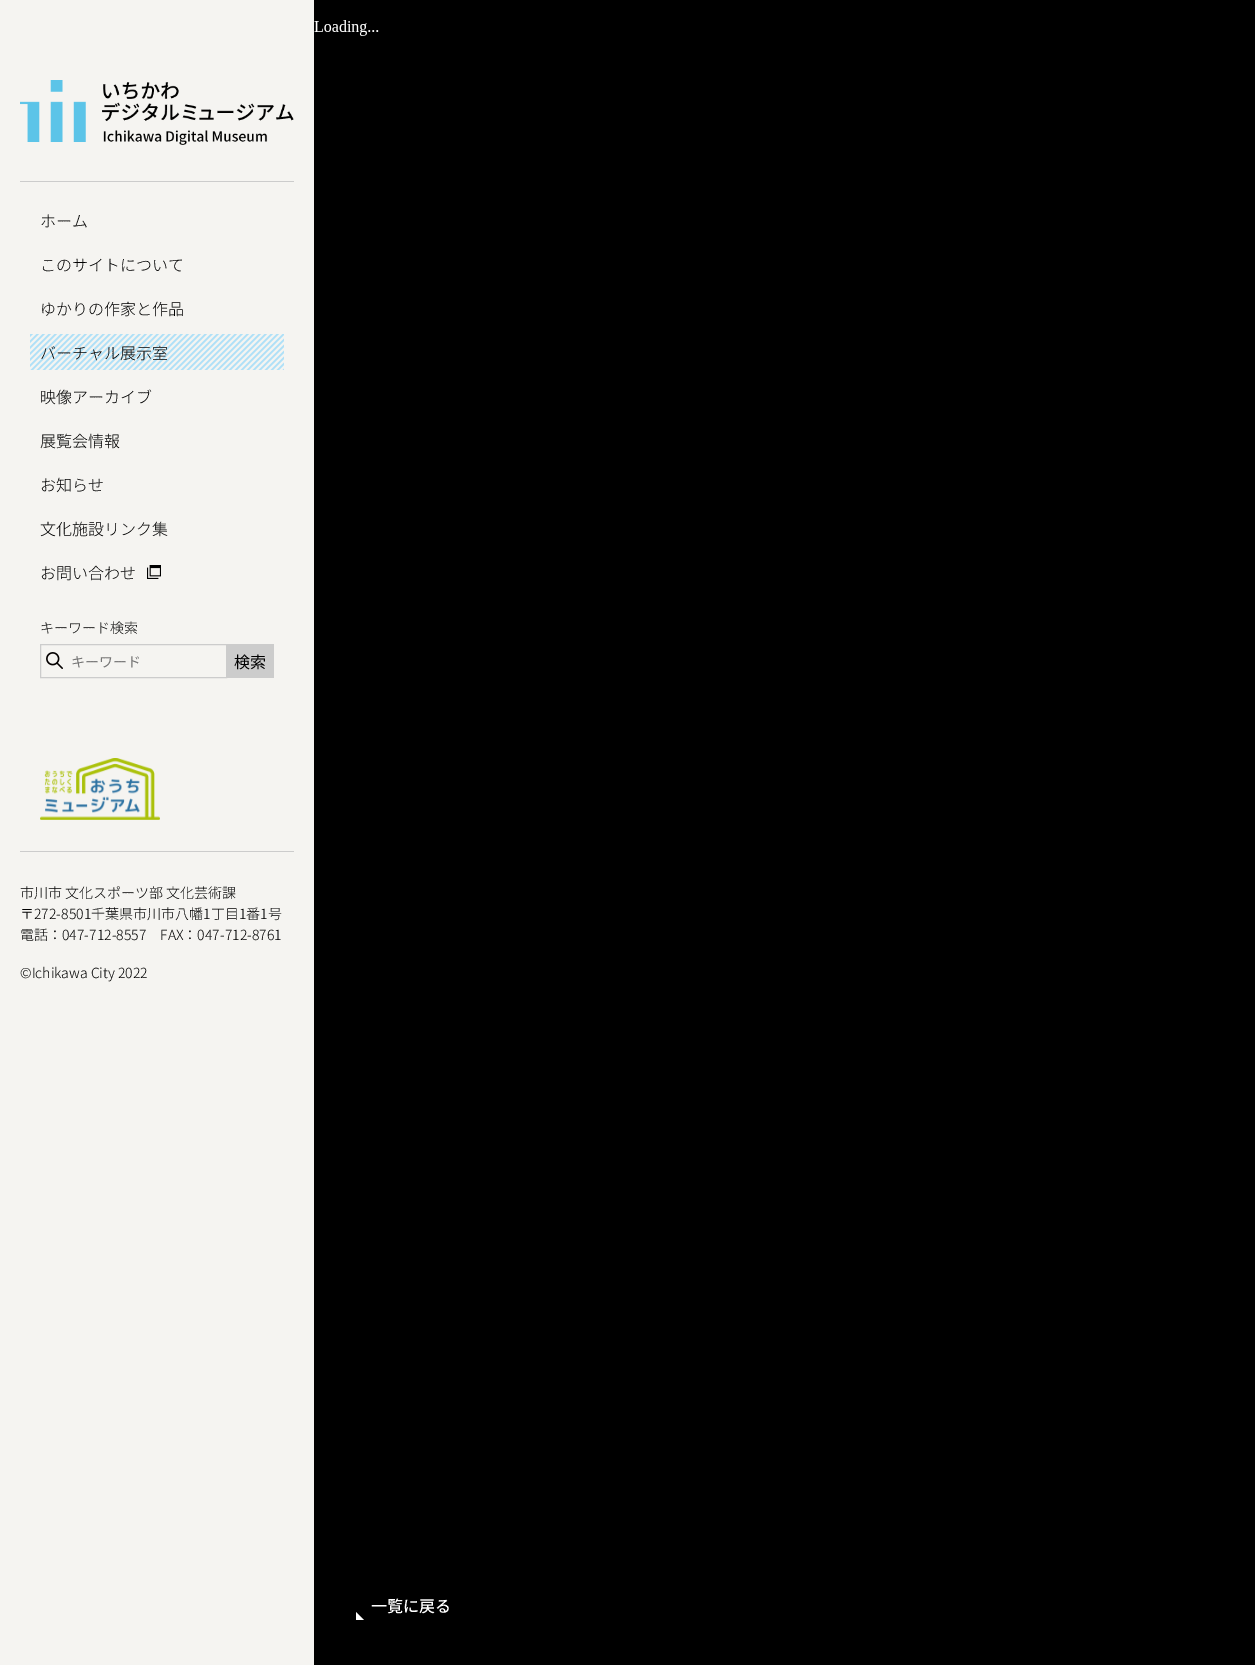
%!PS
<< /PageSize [1255 1665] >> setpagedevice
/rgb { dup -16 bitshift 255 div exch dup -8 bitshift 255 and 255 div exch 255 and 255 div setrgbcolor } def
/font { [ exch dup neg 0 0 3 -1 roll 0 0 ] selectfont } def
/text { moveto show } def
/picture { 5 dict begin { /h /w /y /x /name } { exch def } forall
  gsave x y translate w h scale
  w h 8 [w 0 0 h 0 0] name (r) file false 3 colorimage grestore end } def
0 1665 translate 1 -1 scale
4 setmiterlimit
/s1 { /NotoSansJP-Light 16 font 16#000000 rgb } def
/s2 { /NotoSansJP-Light 14 font 16#000000 rgb } def
/s3 { /NotoSansJP-Regular 14 font 16#757575 rgb } def
/s4 { /NotoSansJP-Regular 16 font 16#000000 rgb } def
/s5 { /NotoSansJP-Medium 16 font 16#FFFFFF rgb } def
16#F5F4F1 rgb
0 0 1255 1665 rectfill
(pic1.raw) 20 80 274 65 picture
16#CCCCCC rgb
20 181 274 1 rectfill
s1
(ホーム) 40 227 text
(このサイトについて) 40 271 text
(ゆかりの作家と作品) 40 315 text
(pic2.raw) 30 334 254 36 picture
(バーチャル展示室) 40 359 text
(映像アーカイブ) 40 403 text
(展覧会情報) 40 447 text
(お知らせ) 40 491 text
(文化施設リンク集) 40 535 text
(お問い合わせ) 40 579 text
(pic3.raw) 147 565 14 14 picture
s2
(キーワード検索) 40 633 text
(pic4.raw) 46 652 17 17 picture
16#CCCCCC rgb
40.5 644.5 186 33 rectstroke
s3
(キーワード) 71 667 text
16#CCCCCC rgb
227 644 47 34 rectfill
s4
(検索) 234 668 text
(pic5.raw) 40 758 120 62 picture
16#CCCCCC rgb
20 851 274 1 rectfill
s2
(市川市 文化スポーツ部 文化芸術課) 20 898 text
(〒272-8501千葉県市川市八幡1丁目1番1号) 20 919 text
(電話：047-712-8557　FAX：047-712-8761) 20 940 text
(©Ichikawa City 2022) 20 978 text
(pic6.raw) 314 0 941 1665 picture
s5
(一覧に戻る) 371 1612 text
356 1620 moveto 356 1612 lineto 364 1620 lineto closepath fill
showpage
